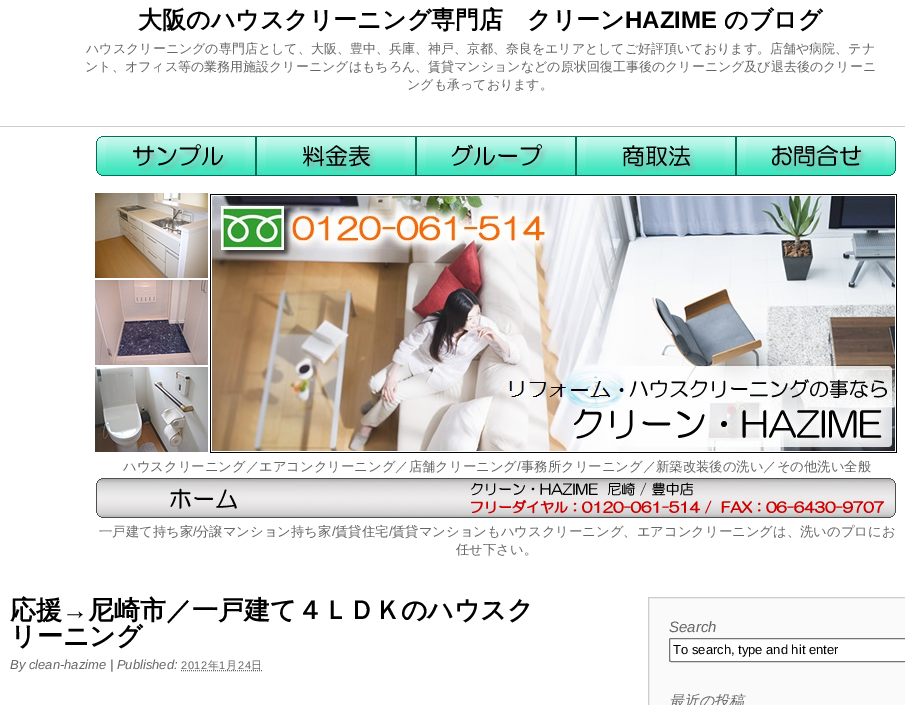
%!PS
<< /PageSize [905 705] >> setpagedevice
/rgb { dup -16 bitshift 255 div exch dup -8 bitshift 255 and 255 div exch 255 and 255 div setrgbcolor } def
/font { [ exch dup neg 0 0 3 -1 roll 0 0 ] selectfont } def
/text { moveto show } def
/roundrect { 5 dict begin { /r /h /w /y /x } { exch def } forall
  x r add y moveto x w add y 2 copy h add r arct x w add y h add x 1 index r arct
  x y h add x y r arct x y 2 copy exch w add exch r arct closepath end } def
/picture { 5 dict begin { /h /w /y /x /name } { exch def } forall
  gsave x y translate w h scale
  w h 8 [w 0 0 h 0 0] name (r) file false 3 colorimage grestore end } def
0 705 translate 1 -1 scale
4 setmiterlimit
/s1 { /WenQuanYiZenHei-Bold 24 font 16#000000 rgb } def
/s2 { /LiberationSans-Bold 24 font 16#000000 rgb } def
/s3 { /WenQuanYiZenHei-Medium 13 font 16#666666 rgb } def
/s4 { /WenQuanYiZenHei-Medium 13.35 font 16#666666 rgb } def
/s5 { /LiberationSans-Regular 13.35 font 16#666666 rgb } def
/s6 { /WenQuanYiZenHei-Bold 26 font 16#000000 rgb } def
/s7 { /LiberationSans-Bold 26 font 16#000000 rgb } def
/s8 { /LiberationSans-Italic 13 font 16#666666 rgb } def
/s9 { /LiberationSans-Italic 15 font 16#666666 rgb } def
/s10 { /LiberationSans-Regular 13 font 16#000000 rgb } def
/s11 { /WenQuanYiZenHei-MediumItalic 15 font 16#666666 rgb } def
16#FFFFFF rgb
0 0 905 705 rectfill
s1
(大阪のハウスクリーニング専門店　クリーン) 138 28 text
s2
(HAZIME) 625 28 text
s1
(のブログ) 724 28 text
s3
(ハウスクリーニングの専門店として、大阪、豊中、兵庫、神戸、京都、奈良をエリアとしてご好評頂いております。店舗や病院、テナ) 86 53 text
(ント、オフィス等の業務用施設クリーニングはもちろん、賃貸マンションなどの原状回復工事後のクリーニング及び退去後のクリーニ) 85 71 text
(ングも承っております。) 407 89 text
16#CCCCCC rgb
0 126 905 1 rectfill
(pic1.raw) 96 136 160 40 picture
(pic2.raw) 256 136 160 40 picture
(pic3.raw) 416 136 160 40 picture
(pic4.raw) 576 136 160 40 picture
(pic5.raw) 736 136 160 40 picture
(pic6.raw) 95 193 113 85 picture
(pic7.raw) 210 194 687 259 picture
(pic8.raw) 95 280 113 85 picture
(pic9.raw) 95 367 113 85 picture
s4
(ハウスクリーニング／エアコンクリーニング／店舗クリーニング) 123 471 text
s5
(/) 517 471 text
s4
(事務所クリーニング／新築改装後の洗い／その他洗い全般) 521 471 text
(pic10.raw) 96 478 10 40 picture
(pic11.raw) 106 478 190 40 picture
(pic12.raw) 296 478 600 40 picture
(一戸建て持ち家) 99 536 text
s5
(/) 193 536 text
s4
(分譲マンション持ち家) 196 536 text
s5
(/) 332 536 text
s4
(賃貸住宅) 335 536 text
s5
(/) 389 536 text
s4
(賃貸マンションもハウスクリーニング、エアコンクリーニングは、洗いのプロにお) 392 536 text
(任せ下さい。) 456 554 text
s6
(応援) 10 619 text
s7
(→) 62 619 text
s6
(尼崎市／一戸建て４ＬＤＫのハウスク) 88 619 text
(リーニング) 10 645 text
s8
(By clean-hazime | Published:) 10 669 text
/LiberationSans-Regular 11 font
181 669 moveto 0.5 0 (2012) ashow
[1 1] 0 setdash
181 670.5 moveto 262.5 670.5 lineto stroke
/WenQuanYiZenHei-Medium 11 font
208 669 moveto 0.5 0 (年) ashow
/LiberationSans-Regular 11 font
219 669 moveto 0.5 0 (1) ashow
/WenQuanYiZenHei-Medium 11 font
226 669 moveto 0.5 0 (月) ashow
/LiberationSans-Regular 11 font
238 669 moveto 0.5 0 (24) ashow
/WenQuanYiZenHei-Medium 11 font
251 669 moveto 0.5 0 (日) ashow
16#FAFAFA rgb
648.5 597.5 moveto 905.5 597.5 lineto 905.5 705.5 lineto 648.5 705.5 lineto closepath gsave fill grestore
16#CCCCCC rgb
[] 0 setdash
stroke
s9
(Search) 669 632 text
16#FFFFFF rgb
669.5 638.5 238 23 1.5 roundrect gsave fill grestore
16#767676 rgb
stroke
s10
(To search, type and hit enter) 673 654 text
s11
(最近の投稿) 669 706 text
showpage
